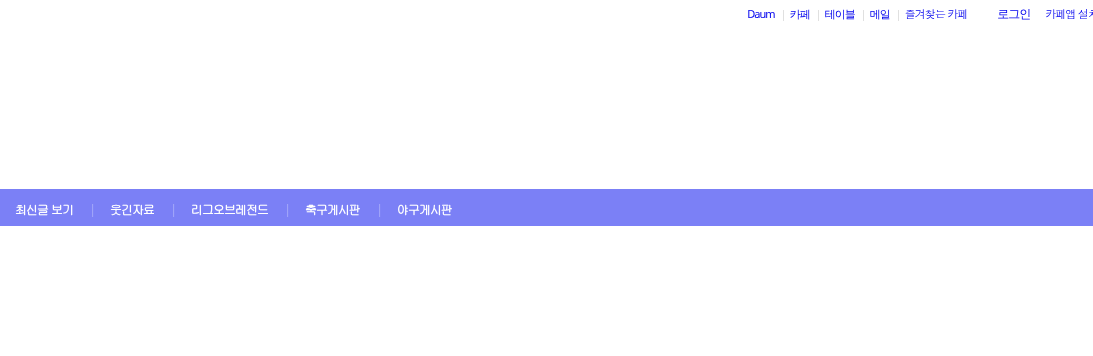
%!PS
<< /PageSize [1093 356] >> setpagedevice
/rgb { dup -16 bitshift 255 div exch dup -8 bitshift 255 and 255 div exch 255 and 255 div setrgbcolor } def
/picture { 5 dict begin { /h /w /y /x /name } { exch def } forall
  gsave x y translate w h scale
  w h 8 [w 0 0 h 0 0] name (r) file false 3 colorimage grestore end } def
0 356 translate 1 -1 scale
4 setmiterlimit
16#FFFFFF rgb
0 0 1093 356 rectfill
(pic1.raw) 0 9 1093 217 picture
showpage
